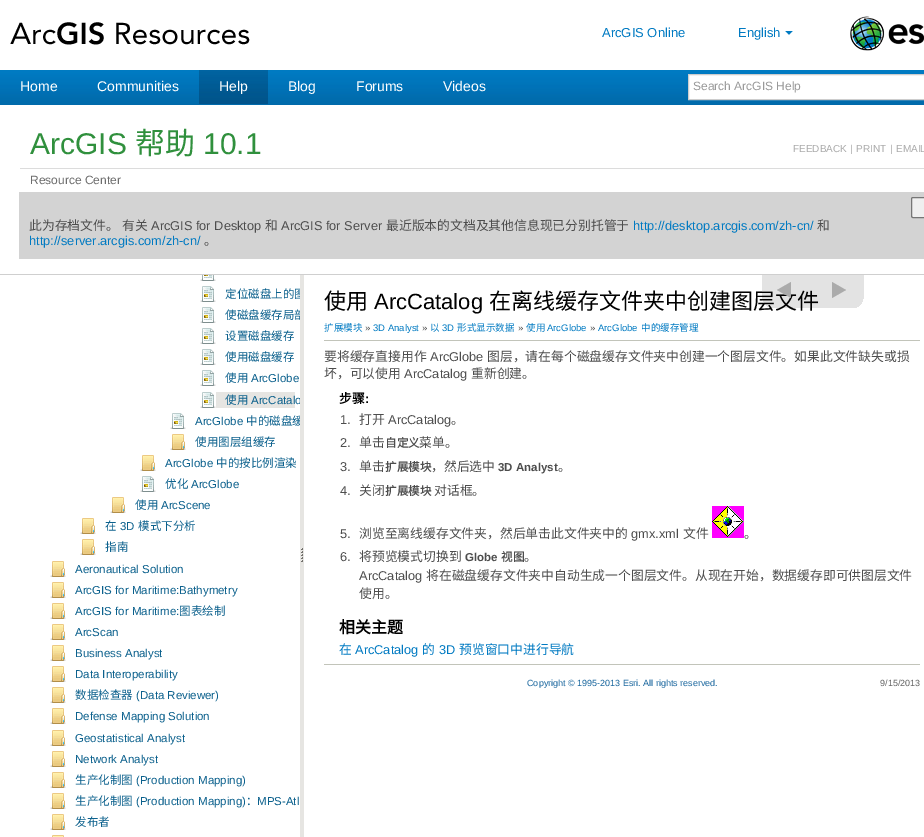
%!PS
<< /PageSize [924 837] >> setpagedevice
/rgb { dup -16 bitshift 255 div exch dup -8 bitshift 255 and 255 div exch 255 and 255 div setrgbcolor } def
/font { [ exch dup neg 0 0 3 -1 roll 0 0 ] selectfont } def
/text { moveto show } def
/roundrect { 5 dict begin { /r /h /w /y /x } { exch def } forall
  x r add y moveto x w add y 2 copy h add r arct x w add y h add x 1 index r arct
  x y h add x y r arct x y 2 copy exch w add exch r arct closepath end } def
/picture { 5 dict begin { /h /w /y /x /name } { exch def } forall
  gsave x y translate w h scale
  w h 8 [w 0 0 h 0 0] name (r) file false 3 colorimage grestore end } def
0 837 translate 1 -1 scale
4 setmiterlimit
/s1 { /LiberationSans-Regular 13 font 16#007AC2 rgb } def
/s2 { /LiberationSans-Regular 14 font 16#FFFFFF rgb } def
/s3 { /LiberationSans-Regular 12 font 16#999999 rgb } def
/s4 { /LiberationSans-Regular 30 font 16#30903D rgb } def
/s5 { /NotoSansCJKSC-Regular 30 font 16#30903D rgb } def
/s6 { /LiberationSans-Regular 10 font 16#ABABAB rgb } def
/s7 { /LiberationSans-Regular 12 font 16#6D6D6D rgb } def
/s8 { /NotoSansCJKSC-Regular 12.8 font 16#4D4D4D rgb } def
/s9 { /LiberationSans-Regular 12.8 font 16#4D4D4D rgb } def
/s10 { /LiberationSans-Regular 12.8 font 16#007AC2 rgb } def
/s11 { /NotoSansCJKSC-Regular 22 font 16#000000 rgb } def
/s12 { /NotoSansCJKSC-Regular 11.5 font 16#0C618D rgb } def
/s13 { /LiberationSans-Regular 11.5 font 16#0C618D rgb } def
/s14 { /LiberationSans-Regular 22 font 16#000000 rgb } def
/s15 { /NotoSansCJKSC-Regular 9.5 font 16#007AC2 rgb } def
/s16 { /LiberationSans-Regular 9.5 font 16#4D4D4D rgb } def
/s17 { /LiberationSans-Regular 9.5 font 16#007AC2 rgb } def
/s18 { /NotoSansCJKSC-Bold 12.8 font 16#000000 rgb } def
/s19 { /LiberationSans-Bold 12.8 font 16#000000 rgb } def
/s20 { /NotoSansCJKSC-Bold 11.5 font 16#4D4D4D rgb } def
/s21 { /LiberationSans-Bold 11.5 font 16#4D4D4D rgb } def
/s22 { /NotoSansCJKSC-Bold 16 font 16#000000 rgb } def
/s23 { /NotoSansCJKSC-Regular 12.8 font 16#007AC2 rgb } def
/s24 { /LiberationSans-Regular 9 font 16#1A679E rgb } def
/s25 { /LiberationSans-Regular 9 font 16#666666 rgb } def
16#FFFFFF rgb
0 0 924 837 rectfill
(pic1.raw) 0 70 924 35 picture
(pic2.raw) 10 22 240 23 picture
s1
(ArcGIS Online) 602 37 text
(English) 738 37 text
(pic3.raw) 785 31 8 4 picture
(pic4.raw) 850 16 74 35 picture
s2
(Home) 20 91 text
(Communities) 97 91 text
(pic5.raw) 199 70 69 34 picture
(Help) 219 91 text
(Blog) 288 91 text
(Forums) 356 91 text
(Videos) 443 91 text
688.5 74.5 moveto 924.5 74.5 lineto 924.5 99.5 lineto 688.5 99.5 lineto closepath gsave fill grestore
16#CDCDCD rgb
stroke
s3
(Search ArcGIS Help) 693 90 text
s4
(ArcGIS) 30 154 text
s5
(帮助) 135 154 text
s4
(10.1) 203 154 text
s6
(FEEDBACK) 793 152 text
(|) 850 152 text
(PRINT) 856 152 text
(|) 890 152 text
(EMAIL) 896 152 text
16#DCDCDC rgb
20 168 904 1 rectfill
s7
(Resource Center) 30 184 text
16#D3D3D3 rgb
19 192 905 67 rectfill
16#EFEFEF rgb
911.5 197.5 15 20 1.5 roundrect gsave fill grestore
16#767676 rgb
stroke
s8
(此为存档文件。) 29 230 text
(有关) 122 230 text
s9
(ArcGIS for Desktop) 151 230 text
s8
(和) 265 230 text
s9
(ArcGIS for Server) 281 230 text
s8
(最近版本的文档及其他信息现已分别托管于) 386 230 text
s10
(http://desktop.arcgis.com/zh-cn/) 633 230 text
s8
(和) 817 230 text
s10
(http://server.arcgis.com/zh-cn/) 29 245 text
s8
(。) 204 245 text
s11
(在离线缓存文件夹中创建图层文件) 489 309 text
(pic6.raw) 762 275 102 33 picture
(pic7.raw) 777 282 14 16 picture
(pic8.raw) 832 282 14 16 picture
16#CFCFCF rgb
0 274 924 1 rectfill
(pic9.raw) 200 275 16 6 picture
(pic10.raw) 200 286 16 16 picture
s12
(定位磁盘上的图) 225 298 text
(pic10.raw) 200 307 16 16 picture
(使磁盘缓存局部) 225 319 text
(pic10.raw) 200 328 16 16 picture
(设置磁盘缓存) 225 340 text
(pic10.raw) 200 349 16 16 picture
(使用磁盘缓存) 225 361 text
(pic10.raw) 200 370 16 16 picture
(使用) 225 382 text
s13
(ArcGlobe) 251 382 text
16#E6E5E2 rgb
216 392 79 16 rectfill
(pic10.raw) 200 392 16 16 picture
s12
(使用) 225 404 text
s13
(ArcCatalo) 251 404 text
(pic10.raw) 170 413 16 16 picture
(ArcGlobe) 195 425 text
s12
(中的磁盘缓) 246 425 text
(pic11.raw) 170 434 16 16 picture
(使用图层组缓存) 195 446 text
(pic11.raw) 140 455 16 16 picture
s13
(ArcGlobe) 165 467 text
s12
(中的按比例渲染) 216 467 text
(pic10.raw) 140 476 16 16 picture
(优化) 165 488 text
s13
(ArcGlobe) 191 488 text
(pic11.raw) 110 497 16 16 picture
s12
(使用) 135 509 text
s13
(ArcScene) 161 509 text
(pic11.raw) 80 518 16 16 picture
s12
(在) 105 530 text
s13
(3D) 120 530 text
s12
(模式下分析) 138 530 text
(pic11.raw) 80 539 16 16 picture
(指南) 105 551 text
(pic11.raw) 50 561 16 16 picture
s13
(Aeronautical Solution) 75 573 text
(pic11.raw) 50 582 16 16 picture
(ArcGIS for Maritime:Bathymetry) 75 594 text
(pic11.raw) 50 603 16 16 picture
(ArcGIS for Maritime:) 75 615 text
s12
(图表绘制) 179 615 text
(pic11.raw) 50 624 16 16 picture
s13
(ArcScan) 75 636 text
(pic11.raw) 50 645 16 16 picture
(Business Analyst) 75 657 text
(pic11.raw) 50 666 16 16 picture
(Data Interoperability) 75 678 text
(pic11.raw) 50 687 16 16 picture
s12
(数据检查器) 75 699 text
s13
(\(Data Reviewer\)) 136 699 text
(pic11.raw) 50 708 16 16 picture
(Defense Mapping Solution) 75 720 text
(pic11.raw) 50 730 16 16 picture
(Geostatistical Analyst) 75 742 text
(pic11.raw) 50 751 16 16 picture
(Network Analyst) 75 763 text
(pic11.raw) 50 772 16 16 picture
s12
(生产化制图) 75 784 text
s13
(\(Production Mapping\)) 136 784 text
(pic11.raw) 50 793 16 16 picture
s12
(生产化制图) 75 805 text
s13
(\(Production Mapping\)) 136 805 text
s12
(：) 246 805 text
s13
(MPS-Atl) 257 805 text
(pic11.raw) 50 814 16 16 picture
s12
(发布者) 75 826 text
(pic12.raw) 52 835 12 2 picture
16#E6E5E2 rgb
300 275 4 562 rectfill
(pic13.raw) 301 548 2 14 picture
16#FFFFFF rgb
304 288 1 31 rectfill
16#C2C4BA rgb
324 340 596 1 rectfill
s11
(使用) 324 309 text
s14
(ArcCatalog) 374 309 text
s15
(扩展模块) 324 331 text
s16
(») 365 331 text
s17
(3D Analyst) 373 331 text
s16
(») 422 331 text
s15
(以) 430 331 text
s17
(3D) 442 331 text
s15
(形式显示数据) 457 331 text
s16
(») 518 331 text
s15
(使用) 526 331 text
s17
(ArcGlobe) 547 331 text
s16
(») 590 331 text
s17
(ArcGlobe) 598 331 text
s15
(中的缓存管理) 641 331 text
s8
(要将缓存直接用作) 324 361 text
s9
(ArcGlobe) 430 361 text
s8
(图层，请在每个磁盘缓存文件夹中创建一个图层文件。如果此文件缺失或损) 487 361 text
(坏，可以使用) 324 378 text
s9
(ArcCatalog) 404 378 text
s8
(重新创建。) 471 378 text
s18
(步骤) 339 403 text
s19
(:) 365 403 text
s9
(1.) 340 424 text
s8
(打开) 359 424 text
s9
(ArcCatalog) 388 424 text
s8
(。) 451 424 text
s9
(2.) 340 447 text
s8
(单击) 359 447 text
s20
(自定义) 385 447 text
s8
(菜单。) 419 447 text
s9
(3.) 340 471 text
s8
(单击) 359 471 text
s20
(扩展模块) 385 471 text
s8
(，然后选中) 431 471 text
s21
(3D Analyst) 498 471 text
s8
(。) 558 471 text
s9
(4.) 340 495 text
s8
(关闭) 359 495 text
s20
(扩展模块) 385 495 text
s8
(对话框。) 434 495 text
s9
(5.) 340 538 text
s8
(浏览至离线缓存文件夹，然后单击此文件夹中的) 359 538 text
s9
(gmx.xml) 631 538 text
s8
(文件) 683 538 text
(pic14.raw) 712 506 32 32 picture
(。) 744 538 text
s9
(6.) 340 561 text
s8
(将预览模式切换到) 359 561 text
s21
(Globe) 465 561 text
s20
(视图) 501 561 text
s8
(。) 524 561 text
s9
(ArcCatalog) 359 580 text
s8
(将在磁盘缓存文件夹中自动生成一个图层文件。从现在开始，数据缓存即可供图层文件) 426 580 text
(使用。) 359 598 text
s22
(相关主题) 339 633 text
s23
(在) 339 654 text
s10
(ArcCatalog) 355 654 text
s23
(的) 422 654 text
s10
(3D) 439 654 text
s23
(预览窗口中进行导航) 459 654 text
16#C2C4BA rgb
324 664 596 1 rectfill
s24
(Copyright © 1995-2013 Esri. All rights reserved.) 527 686 text
s25
(9/15/2013) 880 686 text
showpage
